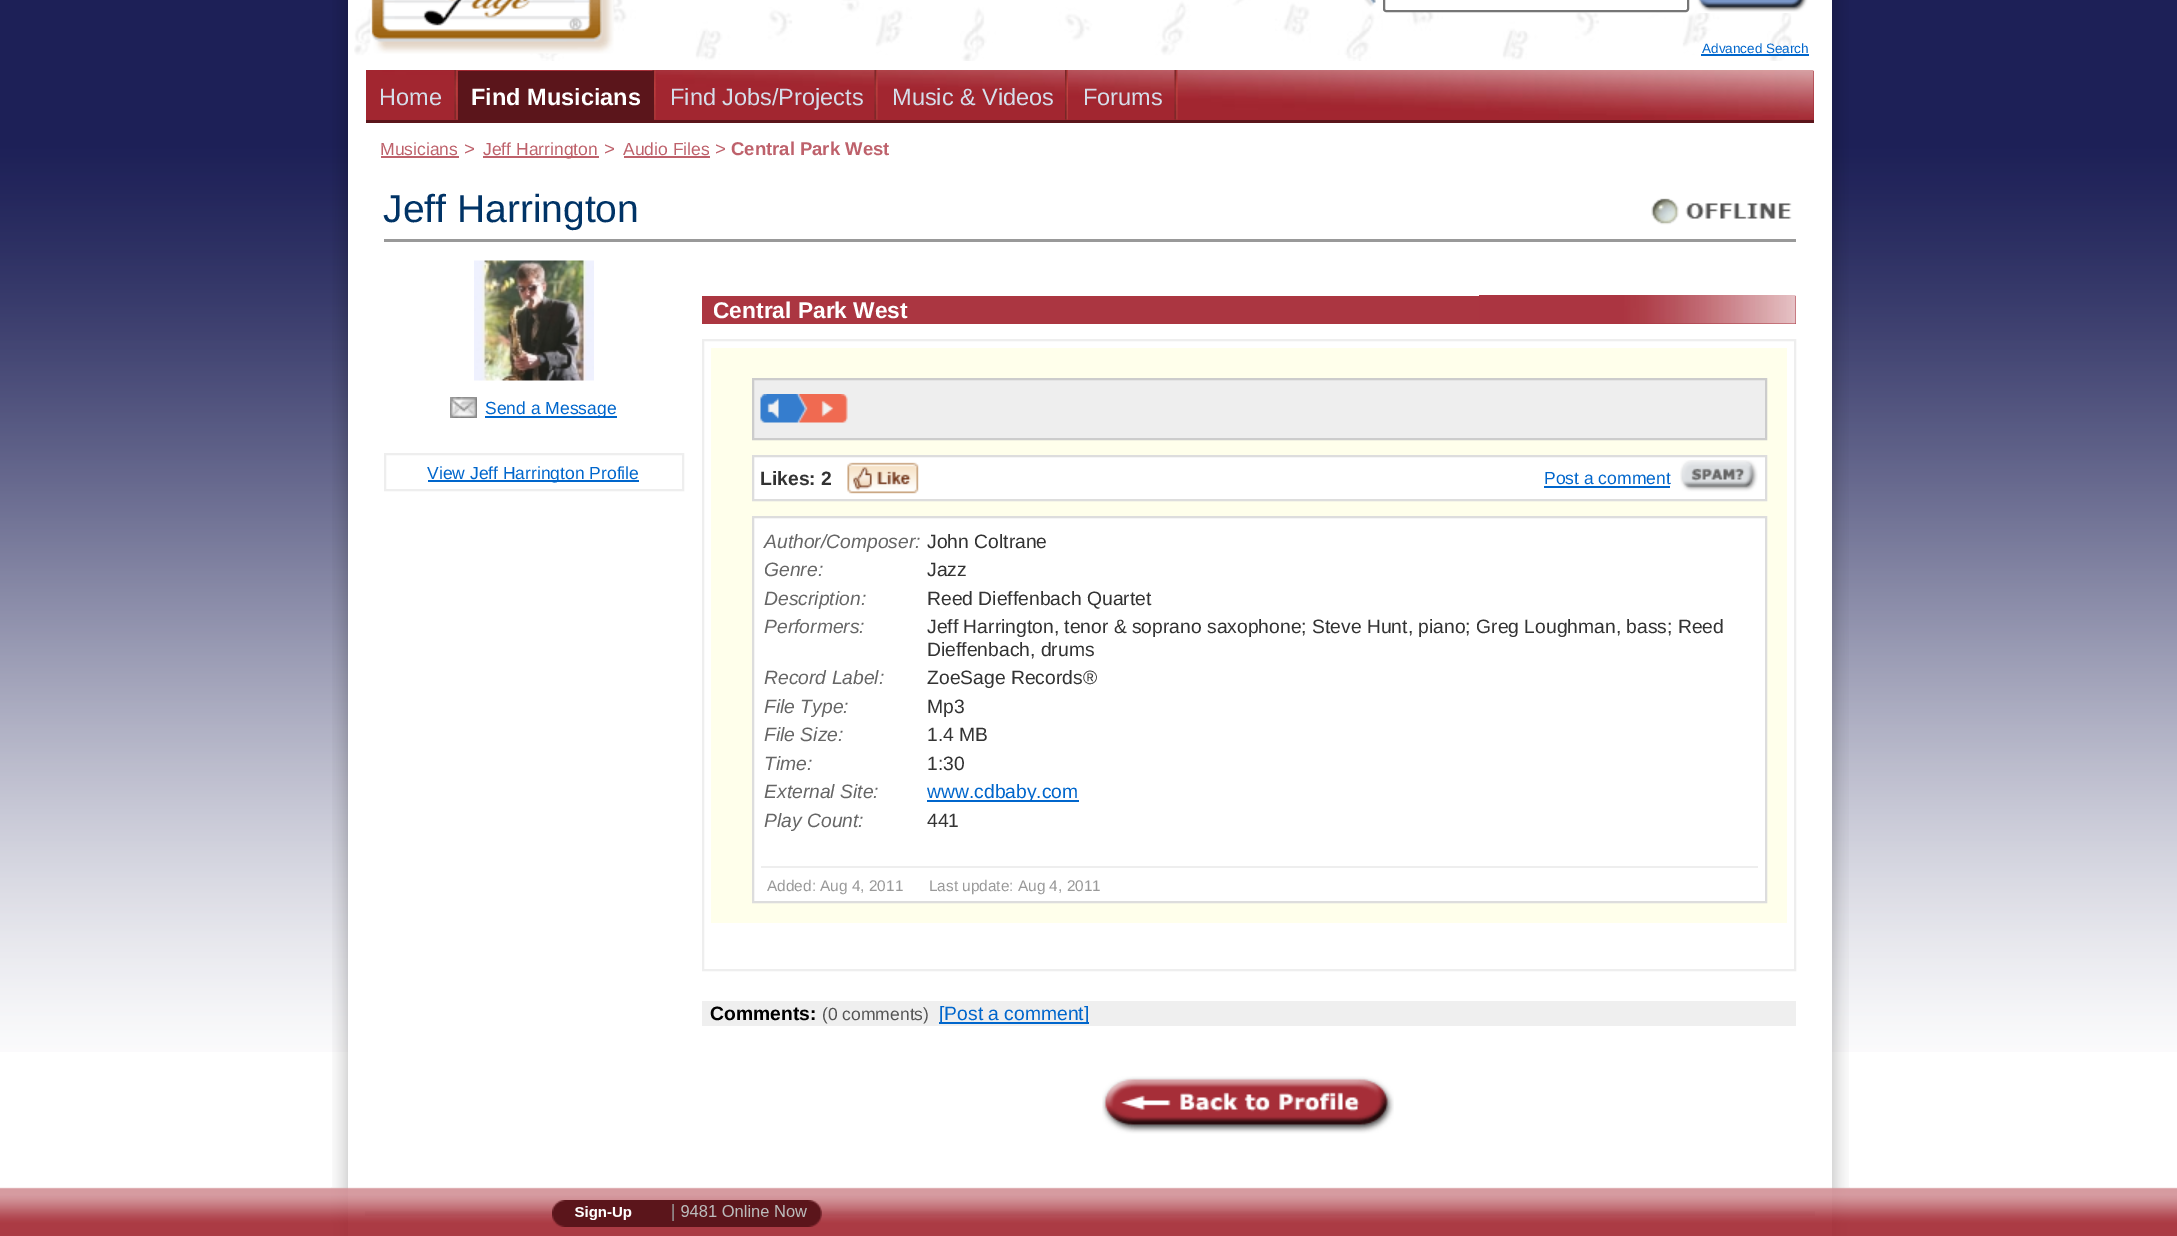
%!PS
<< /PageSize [2177 1236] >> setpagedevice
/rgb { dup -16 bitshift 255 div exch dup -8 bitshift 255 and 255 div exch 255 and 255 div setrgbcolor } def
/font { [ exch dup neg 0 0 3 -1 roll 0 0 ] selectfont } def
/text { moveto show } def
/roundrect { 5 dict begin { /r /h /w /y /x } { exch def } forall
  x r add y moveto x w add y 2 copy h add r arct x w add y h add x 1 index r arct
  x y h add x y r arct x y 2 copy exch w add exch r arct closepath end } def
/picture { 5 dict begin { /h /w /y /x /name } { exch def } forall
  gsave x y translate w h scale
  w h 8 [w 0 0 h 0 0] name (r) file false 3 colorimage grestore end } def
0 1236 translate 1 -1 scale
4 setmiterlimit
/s1 { /LiberationSans-Regular 13.5 font 16#0066CC rgb } def
/s2 { /LiberationSans-Regular 23.5 font 16#D6DDE9 rgb } def
/s3 { /LiberationSans-Bold 23.5 font 16#FFFFFF rgb } def
/s4 { /LiberationSans-Regular 17.5 font 16#BE616B rgb } def
/s5 { /LiberationSans-Regular 18.5 font 16#BE616B rgb } def
/s6 { /LiberationSans-Bold 18.5 font 16#BE616B rgb } def
/s7 { /LiberationSans-Regular 39 font 16#003366 rgb } def
/s8 { /LiberationSans-Regular 17.5 font 16#0066CC rgb } def
/s9 { /LiberationSans-Bold 22.75 font 16#FFFFFF rgb } def
/s10 { /LiberationSans-Bold 19.3 font 16#333333 rgb } def
/s11 { /LiberationSans-Italic 19.3 font 16#666666 rgb } def
/s12 { /LiberationSans-Regular 19.3 font 16#333333 rgb } def
/s13 { /LiberationSans-Regular 19.3 font 16#0066CC rgb } def
/s14 { /LiberationSans-Regular 15.4 font 16#999999 rgb } def
/s15 { /LiberationSans-Bold 19.3 font 16#000000 rgb } def
/s16 { /LiberationSans-Regular 17.5 font 16#555555 rgb } def
16#FFFFFF rgb
0 0 2177 1236 rectfill
(pic1.raw) 0 0 2177 1052 picture
(pic2.raw) 332 0 1517 1236 picture
348 0 1484 1236 rectfill
(pic3.raw) 354 0 1438 61 picture
(pic4.raw) 370 0 244 54 picture
(pic5.raw) 1364 0 12 7 picture
1384 -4 304 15 2 roundrect gsave fill grestore
16#767676 rgb
2 setlinewidth
stroke
(pic6.raw) 1697 0 111 13 picture
s1
(Advanced Search) 1702 53 text
1701 54 108 2 rectfill
16#A22630 rgb
366 71 1448 49 rectfill
(pic7.raw) 366 70 1448 50 picture
16#5B151B rgb
366 120 1448 3 rectfill
(pic8.raw) 454 70 4 50 picture
s2
(Home) 379 105 text
(pic9.raw) 652 70 4 50 picture
16#5B151B rgb
458 71 196 49 rectfill
s3
(Find Musicians) 471 105 text
(pic10.raw) 874 70 4 50 picture
s2
(Find Jobs/Projects) 670 105 text
(pic11.raw) 1065 70 3 50 picture
(Music & Videos) 892 105 text
(pic12.raw) 1174 70 4 50 picture
(Forums) 1083 105 text
s4
(Musicians) 380 155 text
381 156 78 2 rectfill
s5
(>) 464 155 text
483 156 116 2 rectfill
s4
(Jeff Harrington) 483 155 text
s5
(>) 604 155 text
s4
(Audio Files) 623 155 text
624 156 86 2 rectfill
s5
(>) 715 155 text
s6
(Central Park West) 731 155 text
16#999999 rgb
384 239 1412 3 rectfill
s7
(Jeff Harrington) 383 222 text
(pic13.raw) 1651 198 141 27 picture
(pic14.raw) 474 260 120 121 picture
(pic15.raw) 450 397 27 21 picture
16#0066CC rgb
485 416 132 2 rectfill
s8
(Send a Message) 485 414 text
16#EEEEEE rgb
385 454 298 36 rectstroke
16#0066CC rgb
428 480 211 2 rectfill
(View Jeff Harrington Profile) 427 479 text
16#AB3641 rgb
702 296 1094 28 rectfill
(pic16.raw) 1479 295 317 29 picture
s9
(Central Park West) 713 318 text
16#EEEEEE rgb
703 340 1092 630 rectstroke
16#FFFFEB rgb
711 348 1076 575 rectfill
16#EEEEEE rgb
753 379 moveto 1766 379 lineto 1766 439 lineto 753 439 lineto closepath gsave fill grestore
16#CCCCCC rgb
stroke
(pic17.raw) 760 394 88 29 picture
16#FFFFFF rgb
753 456 moveto 1766 456 lineto 1766 500 lineto 753 500 lineto closepath gsave fill grestore
16#DDDDDD rgb
stroke
s10
(Likes: 2) 760 485 text
(pic18.raw) 847 462 72 32 picture
s8
(Post a comment) 1544 484 text
1544 486 126 2 rectfill
(pic19.raw) 1680 460 78 32 picture
16#FFFFFF rgb
753 517 moveto 1766 517 lineto 1766 902 lineto 753 902 lineto closepath gsave fill grestore
16#DDDDDD rgb
stroke
s11
(Author/Composer:) 764 548 text
s12
(John Coltrane) 927 548 text
s11
(Genre:) 764 576 text
s12
(Jazz) 927 576 text
s11
(Description:) 764 605 text
s12
(Reed Dieffenbach Quartet) 927 605 text
s11
(Performers:) 764 633 text
s12
(Jeff Harrington, tenor & soprano saxophone; Steve Hunt, piano; Greg Loughman, bass; Reed) 927 633 text
(Dieffenbach, drums) 927 656 text
s11
(Record Label:) 764 684 text
s12
(ZoeSage Records®) 927 684 text
s11
(File Type:) 764 713 text
s12
(Mp3) 927 713 text
s11
(File Size:) 764 741 text
s12
(1.4 MB) 927 741 text
s11
(Time:) 764 770 text
s12
(1:30) 927 770 text
s11
(External Site:) 764 798 text
16#0066CC rgb
927 800 152 2 rectfill
s13
(www.cdbaby.com) 927 798 text
s11
(Play Count:) 764 827 text
s12
(441) 927 827 text
16#EEEEEE rgb
761 866 997 2 rectfill
s14
(Added: Aug 4, 2011      Last update: Aug 4, 2011) 767 891 text
16#EFEFEF rgb
702 1001 1094 25 rectfill
s15
(Comments:) 710 1020 text
s16
(\(0 comments\)) 822 1020 text
16#0066CC rgb
939 1022 150 2 rectfill
s13
([Post a comment]) 939 1020 text
(pic20.raw) 1102 1076 292 58 picture
(pic21.raw) 0 1187 2177 49 picture
(pic22.raw) 552 1200 270 27 picture
showpage
